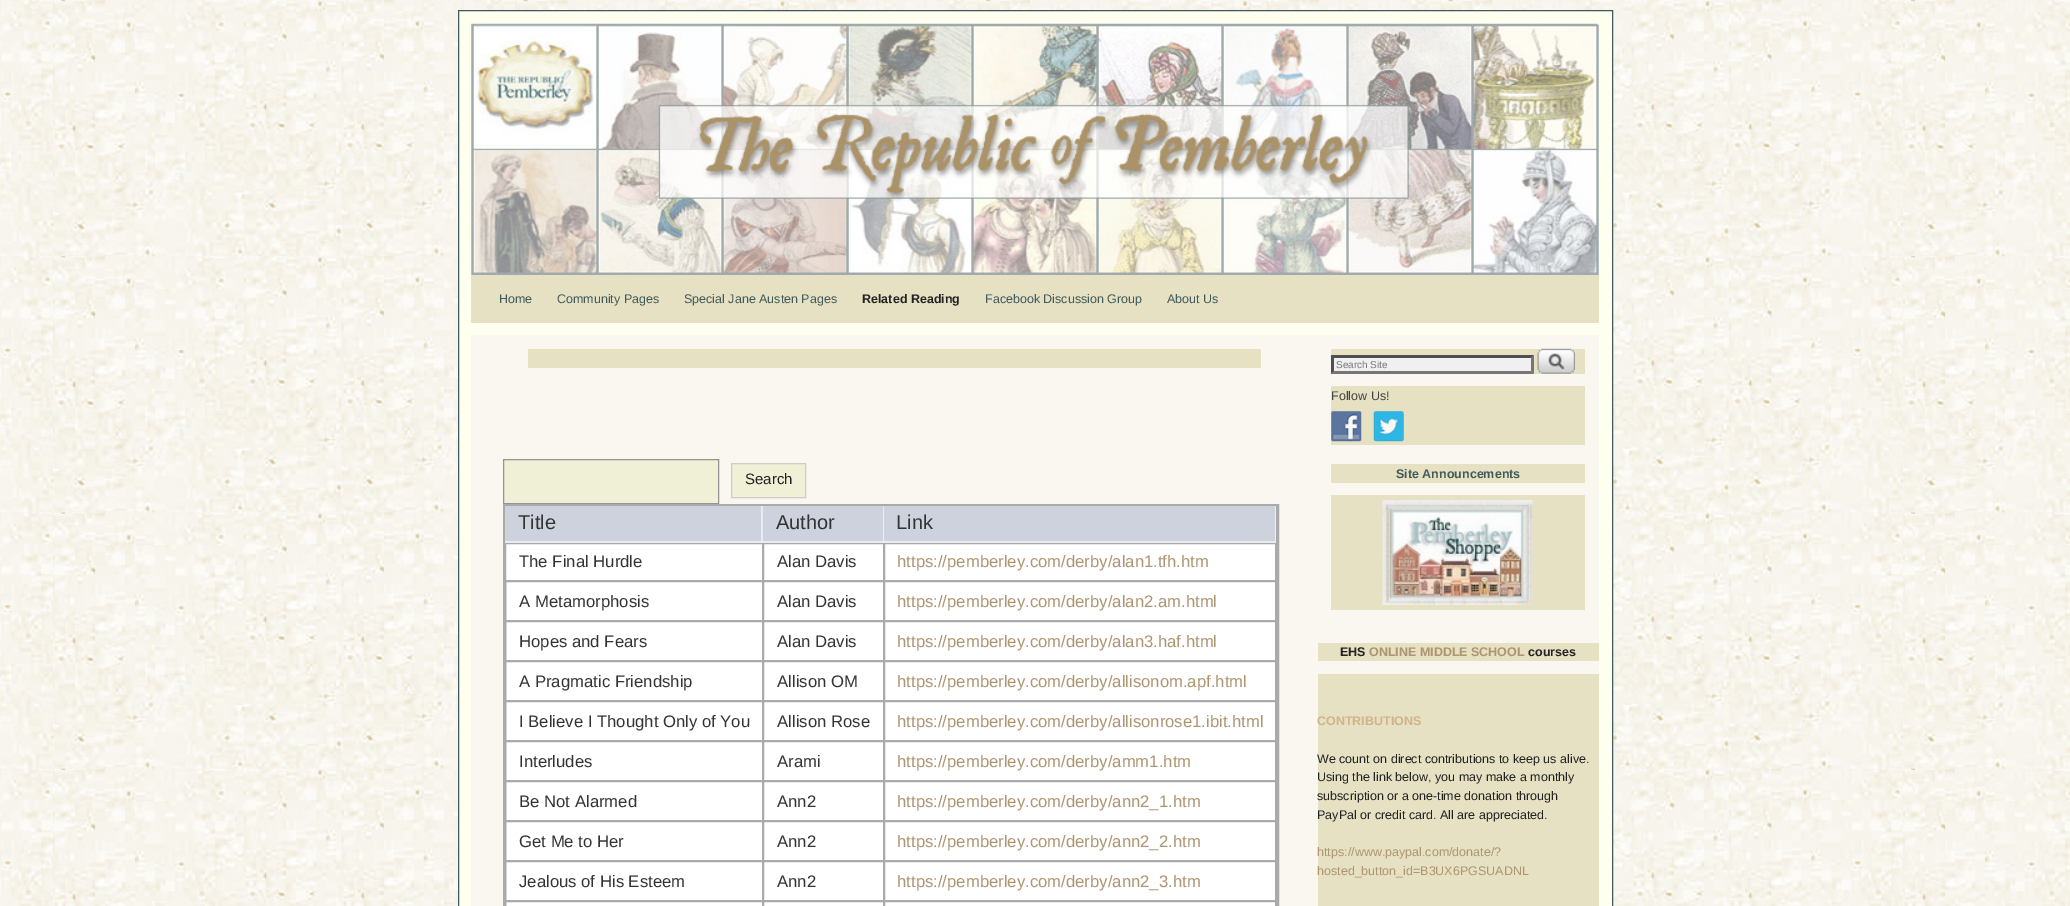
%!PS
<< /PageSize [2070 906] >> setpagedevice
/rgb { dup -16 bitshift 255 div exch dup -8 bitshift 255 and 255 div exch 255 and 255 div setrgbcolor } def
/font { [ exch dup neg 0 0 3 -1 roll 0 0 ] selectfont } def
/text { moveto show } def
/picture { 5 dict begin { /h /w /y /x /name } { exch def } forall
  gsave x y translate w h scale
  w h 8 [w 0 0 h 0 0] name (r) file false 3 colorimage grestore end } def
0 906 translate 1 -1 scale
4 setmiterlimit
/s1 { /LiberationSans-Regular 12.5 font 16#40595A rgb } def
/s2 { /LiberationSans-Bold 12.5 font 16#222222 rgb } def
/s3 { /LiberationSans-Regular 15 font 16#222222 rgb } def
/s4 { /LiberationSans-Regular 20 font 16#333333 rgb } def
/s5 { /LiberationSans-Regular 16.7 font 16#333333 rgb } def
/s6 { /LiberationSans-Regular 16.7 font 16#AD9571 rgb } def
/s7 { /LiberationSans-Regular 10 font 16#757575 rgb } def
/s8 { /LiberationSans-Regular 12.5 font 16#444444 rgb } def
/s9 { /LiberationSans-Bold 12.5 font 16#40595A rgb } def
/s10 { /LiberationSans-Bold 12.5 font 16#AD9571 rgb } def
/s11 { /LiberationSans-Bold 12.5 font 16#D2B48C rgb } def
/s12 { /LiberationSans-Regular 12.5 font 16#222222 rgb } def
/s13 { /LiberationSans-Regular 12.5 font 16#AD9571 rgb } def
16#FFFFFF rgb
0 0 2070 906 rectfill
(pic1.raw) 0 0 2070 906 picture
16#FFFFF0 rgb
458.5 10.5 moveto 1612.5 10.5 lineto 1612.5 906.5 lineto 458.5 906.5 lineto closepath gsave fill grestore
16#40595A rgb
stroke
(pic2.raw) 471 23 1128 252 picture
16#E6E1C2 rgb
471 275 1128 48 rectfill
s1
(Home) 499 303 text
(Community Pages) 557 303 text
(Special Jane Austen Pages) 684 303 text
s2
(Related Reading) 862 303 text
s1
(Facebook Discussion Group) 985 303 text
(About Us) 1167 303 text
16#FAF7F0 rgb
471 335 1128 571 rectfill
16#E6E1C2 rgb
528 349 733 19 rectfill
16#F0F0D6 rgb
503.5 459.5 moveto 718.5 459.5 lineto 718.5 503.5 lineto 503.5 503.5 lineto closepath gsave fill grestore
16#949494 rgb
stroke
16#F0F0D6 rgb
731.5 463.5 moveto 805.5 463.5 lineto 805.5 497.5 lineto 731.5 497.5 lineto closepath gsave fill grestore
16#CCCCCC rgb
stroke
s3
(Search) 745 484 text
16#FFFFFF rgb
506 582 769 324 rectfill
16#AAAAAA rgb
3 setlinewidth
504.5 505.5 773 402 rectstroke
16#E4E9F4 rgb
505 506 770 37 rectfill
16#CDD2DC rgb
505 506 256 35 rectfill
16#EEEEEE rgb
761 506 1 37 rectfill
505 541 258 1 rectfill
s4
(Title) 518 529 text
16#CDD2DC rgb
763 506 120 35 rectfill
16#EEEEEE rgb
883 506 1 37 rectfill
763 541 121 1 rectfill
s4
(Author) 776 529 text
16#CDD2DC rgb
884 506 391 35 rectfill
16#EEEEEE rgb
1275 506 1 37 rectfill
884 541 392 1 rectfill
s4
(Link) 896 529 text
16#FFFFFF rgb
506 544 769 36 rectfill
16#AAAAAA rgb
1 setlinewidth
505.5 543.5 257 37 rectstroke
s5
(The Final Hurdle) 519 567 text
16#AAAAAA rgb
763.5 543.5 120 37 rectstroke
s5
(Alan Davis) 777 567 text
16#AAAAAA rgb
884.5 543.5 391 37 rectstroke
s6
(https://pemberley.com/derby/alan1.tfh.htm) 897 567 text
16#AAAAAA rgb
505.5 581.5 257 39 rectstroke
s5
(A Metamorphosis) 519 607 text
16#AAAAAA rgb
763.5 581.5 120 39 rectstroke
s5
(Alan Davis) 777 607 text
16#AAAAAA rgb
884.5 581.5 391 39 rectstroke
s6
(https://pemberley.com/derby/alan2.am.html) 897 607 text
16#AAAAAA rgb
505.5 621.5 257 39 rectstroke
s5
(Hopes and Fears) 519 647 text
16#AAAAAA rgb
763.5 621.5 120 39 rectstroke
s5
(Alan Davis) 777 647 text
16#AAAAAA rgb
884.5 621.5 391 39 rectstroke
s6
(https://pemberley.com/derby/alan3.haf.html) 897 647 text
16#AAAAAA rgb
505.5 661.5 257 39 rectstroke
s5
(A Pragmatic Friendship) 519 687 text
16#AAAAAA rgb
763.5 661.5 120 39 rectstroke
s5
(Allison OM) 777 687 text
16#AAAAAA rgb
884.5 661.5 391 39 rectstroke
s6
(https://pemberley.com/derby/allisonom.apf.html) 897 687 text
16#AAAAAA rgb
505.5 701.5 257 39 rectstroke
s5
(I Believe I Thought Only of You) 519 727 text
16#AAAAAA rgb
763.5 701.5 120 39 rectstroke
s5
(Allison Rose) 777 727 text
16#AAAAAA rgb
884.5 701.5 391 39 rectstroke
s6
(https://pemberley.com/derby/allisonrose1.ibit.html) 897 727 text
16#AAAAAA rgb
505.5 741.5 257 39 rectstroke
s5
(Interludes) 519 767 text
16#AAAAAA rgb
763.5 741.5 120 39 rectstroke
s5
(Arami) 777 767 text
16#AAAAAA rgb
884.5 741.5 391 39 rectstroke
s6
(https://pemberley.com/derby/amm1.htm) 897 767 text
16#AAAAAA rgb
505.5 781.5 257 39 rectstroke
s5
(Be Not Alarmed) 519 807 text
16#AAAAAA rgb
763.5 781.5 120 39 rectstroke
s5
(Ann2) 777 807 text
16#AAAAAA rgb
884.5 781.5 391 39 rectstroke
s6
(https://pemberley.com/derby/ann2_1.htm) 897 807 text
16#AAAAAA rgb
505.5 821.5 257 39 rectstroke
s5
(Get Me to Her) 519 847 text
16#AAAAAA rgb
763.5 821.5 120 39 rectstroke
s5
(Ann2) 777 847 text
16#AAAAAA rgb
884.5 821.5 391 39 rectstroke
s6
(https://pemberley.com/derby/ann2_2.htm) 897 847 text
16#AAAAAA rgb
505.5 861.5 257 39 rectstroke
s5
(Jealous of His Esteem) 519 887 text
16#AAAAAA rgb
763.5 861.5 120 39 rectstroke
s5
(Ann2) 777 887 text
16#AAAAAA rgb
884.5 861.5 391 39 rectstroke
s6
(https://pemberley.com/derby/ann2_3.htm) 897 887 text
16#AAAAAA rgb
505.5 901.5 257 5 rectstroke
763.5 901.5 120 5 rectstroke
884.5 901.5 391 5 rectstroke
16#E6E1C2 rgb
1331 349 254 25 rectfill
16#F0F0F0 rgb
1331 355 203 19 rectfill
16#4F4F4F rgb
1331 355 moveto 1534 355 lineto 1531 358 lineto 1334 358 lineto closepath fill
16#767676 rgb
1534 355 moveto 1534 374 lineto 1531 371 lineto 1531 357.5 lineto closepath fill
1534 374 moveto 1331 374 lineto 1334 371 lineto 1531 371 lineto closepath fill
16#4F4F4F rgb
1331 374 moveto 1331 355 lineto 1334 357.5 lineto 1334 371 lineto closepath fill
s7
(Search Site) 1336 368 text
(pic3.raw) 1537 348 38 26 picture
16#E6E1C2 rgb
1331 386 254 59 rectfill
s8
(Follow Us!) 1331 400 text
(pic4.raw) 1331 411 31 31 picture
(pic5.raw) 1373 411 31 31 picture
16#E6E1C2 rgb
1331 464 254 19 rectfill
s9
(Site Announcements) 1396 478 text
16#E6E1C2 rgb
1331 495 254 115 rectfill
(pic6.raw) 1382 500 151 105 picture
1318 643 281 18 rectfill
s2
(EHS) 1340 656 text
s10
(ONLINE MIDDLE SCHOOL) 1369 656 text
s2
(courses) 1528 656 text
16#E6E1C2 rgb
1318 674 281 232 rectfill
s11
(CONTRIBUTIONS) 1317 725 text
s12
(We count on direct contributions to keep us alive.) 1317 763 text
(Using the link below, you may make a monthly) 1317 781 text
(subscription or a one-time donation through) 1317 800 text
(PayPal or credit card. All are appreciated.) 1317 819 text
s13
(https://www.paypal.com/donate/?) 1317 856 text
(hosted_button_id=B3UX6PGSUADNL) 1317 875 text
showpage
